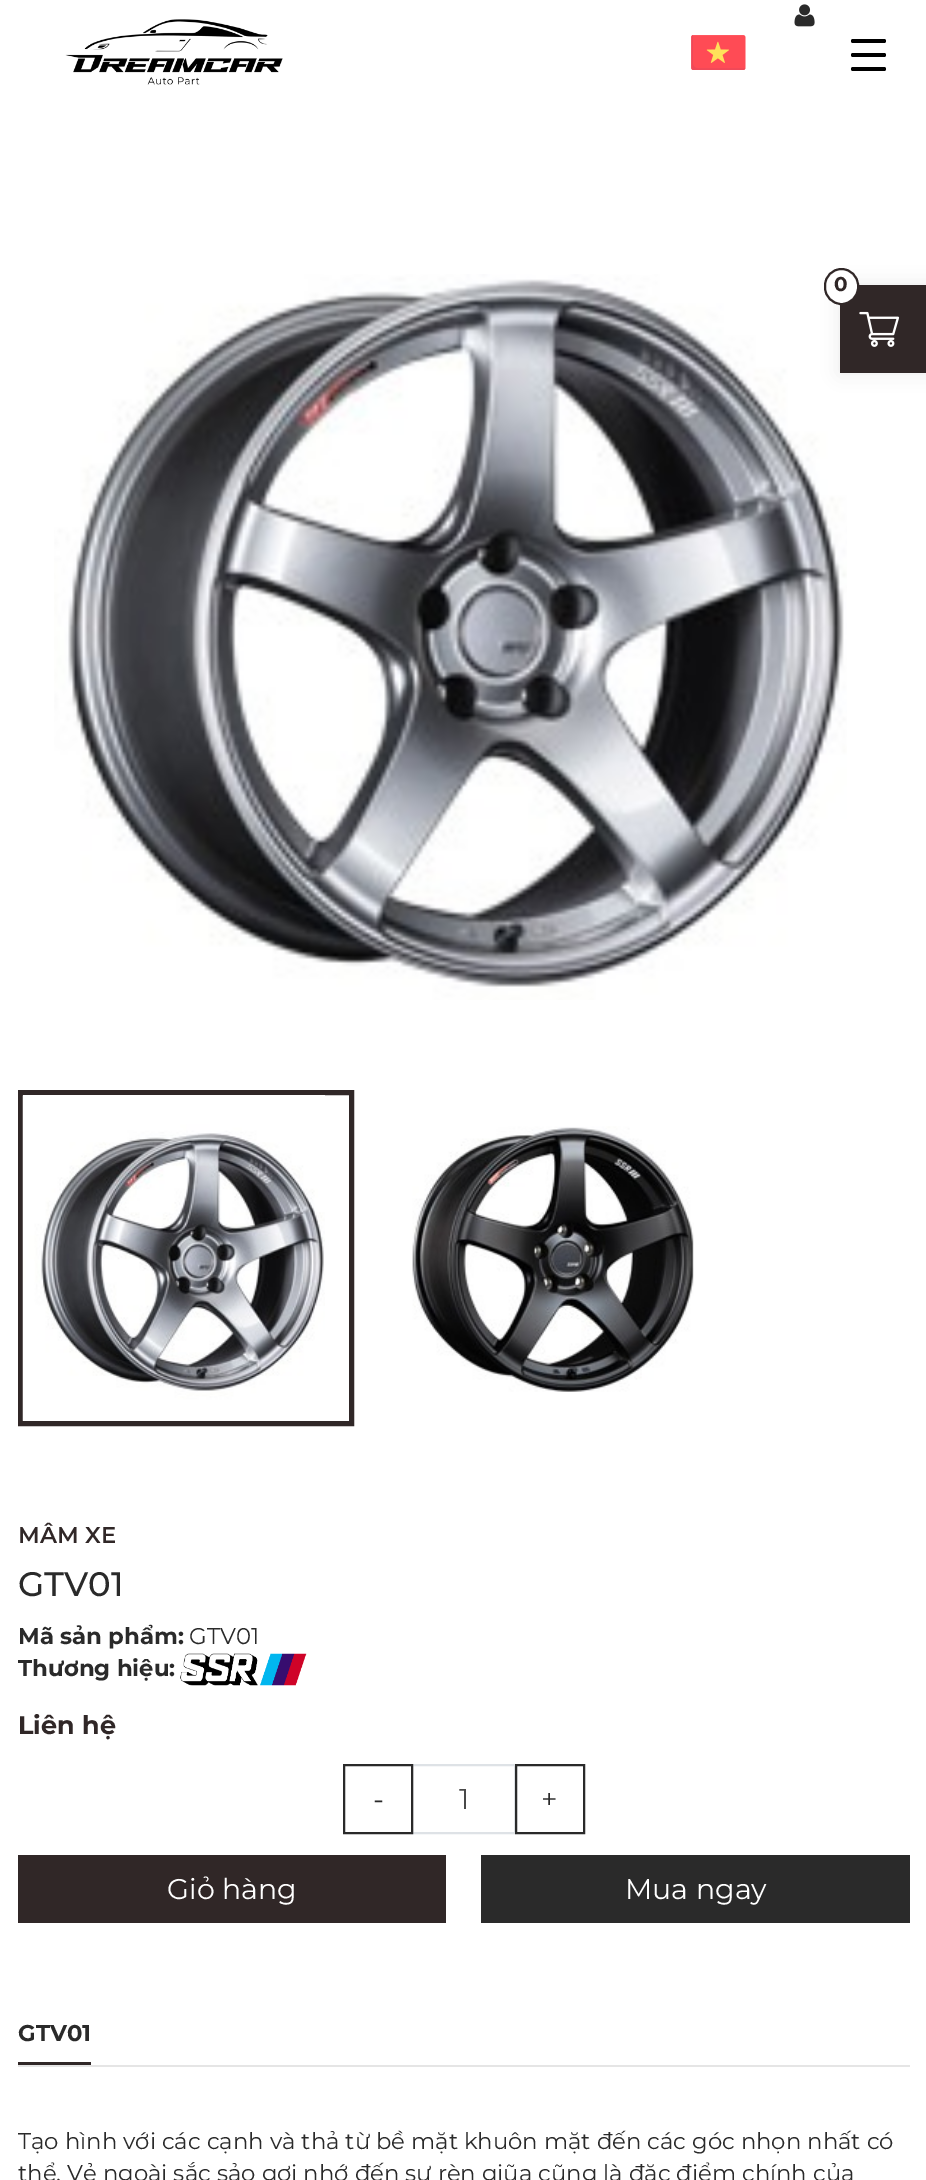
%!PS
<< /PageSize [926 2180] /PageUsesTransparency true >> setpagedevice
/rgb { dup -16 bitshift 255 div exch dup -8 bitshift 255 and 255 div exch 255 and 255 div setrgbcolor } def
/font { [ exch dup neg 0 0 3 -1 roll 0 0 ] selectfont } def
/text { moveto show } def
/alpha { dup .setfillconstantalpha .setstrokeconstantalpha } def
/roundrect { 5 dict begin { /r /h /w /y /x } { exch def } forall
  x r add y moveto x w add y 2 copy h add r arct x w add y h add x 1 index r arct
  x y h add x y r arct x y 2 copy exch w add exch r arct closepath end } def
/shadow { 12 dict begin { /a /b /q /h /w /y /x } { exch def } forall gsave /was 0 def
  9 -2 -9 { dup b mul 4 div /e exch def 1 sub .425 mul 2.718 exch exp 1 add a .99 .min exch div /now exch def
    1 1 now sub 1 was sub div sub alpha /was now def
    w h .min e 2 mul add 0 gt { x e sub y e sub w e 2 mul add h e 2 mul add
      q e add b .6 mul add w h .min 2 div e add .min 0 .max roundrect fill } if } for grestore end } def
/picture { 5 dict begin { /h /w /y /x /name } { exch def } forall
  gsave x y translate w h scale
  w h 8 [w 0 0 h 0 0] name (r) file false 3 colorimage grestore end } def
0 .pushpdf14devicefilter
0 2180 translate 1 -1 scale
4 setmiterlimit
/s1 { /Montserrat-Bold 20 font 16#302727 rgb } def
/s2 { /Montserrat-SemiBold 22.75 font 16#302727 rgb } def
/s3 { /Montserrat-Thin 34 font 16#2A2A2A rgb } def
/s4 { /Montserrat-Bold 22.75 font 16#2A2A2A rgb } def
/s5 { /Montserrat-Regular 22.75 font 16#2A2A2A rgb } def
/s6 { /Montserrat-Bold 25.5 font 16#302727 rgb } def
/s7 { /Montserrat-Regular 28.5 font 16#2A2A2A rgb } def
/s8 { /Montserrat-Regular 28.5 font 16#494949 rgb } def
/s9 { /Montserrat-Regular 28.5 font 16#FFFFFF rgb } def
16#FFFFFF rgb
0 0 926 2180 rectfill
(pic5.raw) 54 274 793 726 picture
16#000000 rgb
840 285 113 88 0 9 0.08 shadow
16#302727 rgb
840 285 86 88 rectfill
16#FFFFFF rgb
825 269 33 35 16.5 roundrect gsave fill grestore
16#302727 rgb
2 setlinewidth
stroke
s1
(0) 834 291 text
(pic1.raw) 859 311 41 36 picture
(pic2.raw) 65 19 218 66 picture
(pic3.raw) 794 4 21 23 picture
(pic4.raw) 691 35 55 35 picture
16#000000 rgb
851 39 35 4 2 roundrect fill
851 53 35 4 2 roundrect fill
851 67 35 4 2 roundrect fill
16#302727 rgb
5 setlinewidth
20.5 1092.5 331 331 rectstroke
(pic6.raw) 22 1095 303 326 picture
(pic7.raw) 412 1126 282 266 picture
s2
(MÂM XE) 18 1543 text
s3
(GTV01) 18 1596 text
s4
(Mã sản phẩm:) 18 1644 text
s5
(GTV01) 189 1644 text
s4
(Thương hiệu:) 18 1676 text
(pic8.raw) 180 1653 127 33 picture
s6
(Liên hệ) 18 1734 text
16#DEE2E6 rgb
2 setlinewidth
412 1765 103 68 rectstroke
16#2A2A2A rgb
344 1765 68 68 rectstroke
s7
(-) 373 1809 text
s8
(1) 459 1809 text
16#2A2A2A rgb
516 1765 68 68 rectstroke
(+) 541 1809 text
16#302727 rgb
18 1855 428 68 rectfill
s9
(Giỏ hàng) 167 1899 text
16#2A2A2A rgb
481 1855 429 68 rectfill
s9
(Mua ngay) 625 1899 text
16#E5E5E5 rgb
18 2065 892 2 rectfill
16#302727 rgb
18 2062 73 3 rectfill
s4
(GTV01) 18 2041 text
s5
(Tạo hình với các cạnh và thả từ bề mặt khuôn mặt đến các góc nhọn nhất có) 18 2149 text
(thể. Vẻ ngoài sắc sảo gợi nhớ đến sự rèn giũa cũng là đặc điểm chính của) 18 2181 text
.poppdf14devicefilter showpage
